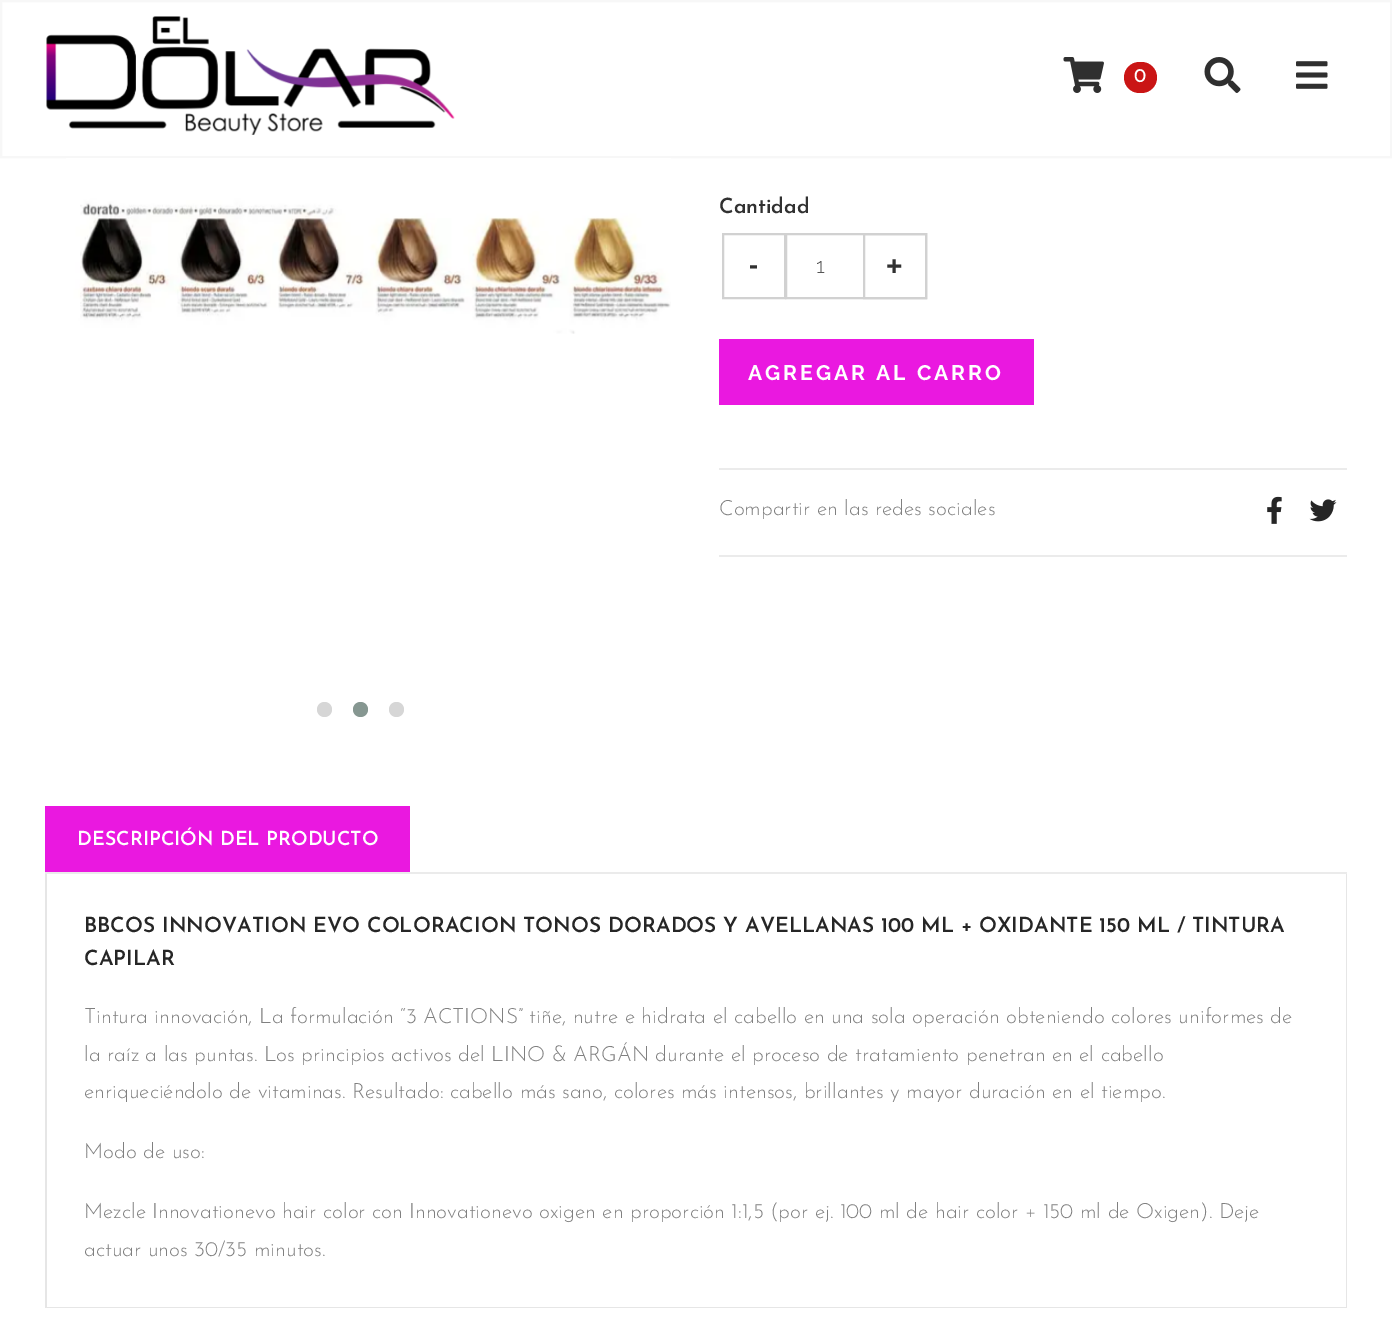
%!PS
<< /PageSize [1392 1319] >> setpagedevice
/rgb { dup -16 bitshift 255 div exch dup -8 bitshift 255 and 255 div exch 255 and 255 div setrgbcolor } def
/font { [ exch dup neg 0 0 3 -1 roll 0 0 ] selectfont } def
/text { moveto show } def
/circle { newpath 0 360 arc closepath } def
/roundrect { 5 dict begin { /r /h /w /y /x } { exch def } forall
  x r add y moveto x w add y 2 copy h add r arct x w add y h add x 1 index r arct
  x y h add x y r arct x y 2 copy exch w add exch r arct closepath end } def
/picture { 5 dict begin { /h /w /y /x /name } { exch def } forall
  gsave x y translate w h scale
  w h 8 [w 0 0 h 0 0] name (r) file false 3 colorimage grestore end } def
0 1319 translate 1 -1 scale
4 setmiterlimit
/s1 { /JosefinSans-Regular 19.5 font 16#FFFFFF rgb } def
/s2 { /JosefinSans-SemiBold 21 font 16#313131 rgb } def
/s3 { /JosefinSans-Regular 38 font 16#313131 rgb } def
/s4 { /Raleway-Light 21 font 16#555555 rgb } def
/s5 { /JosefinSans-Light 21 font 16#808080 rgb } def
/s6 { /JosefinSans-SemiBold 19.5 font 16#FFFFFF rgb } def
/s7 { /JosefinSans-SemiBold 21 font 16#262626 rgb } def
16#FFFFFF rgb
0 0 1392 1319 rectfill
16#F7F7F7 rgb
2 setlinewidth
1 1 1390 156 rectstroke
(pic1.raw) 46 16 409 119 picture
(pic2.raw) 1063 57 41 36 picture
16#CA1515 rgb
1124 62 33 31 15.5 roundrect fill
s1
(0) 1134 82 text
(pic3.raw) 1204 57 37 36 picture
(pic4.raw) 1296 61 32 28 picture
(pic5.raw) 66 158 605 176 picture
16#D6D6D6 rgb
324.5 709.5 7.5 circle fill
16#869791 rgb
360.5 709.5 7.5 circle fill
16#D6D6D6 rgb
396.5 709.5 7.5 circle fill
s2
(Cantidad) 719 213 text
16#D1D1D1 rgb
786 234 140 64 rectstroke
723 234 62 64 rectstroke
s3
(-) 748 275 text
s4
(1) 816 273 text
16#D1D1D1 rgb
864 234 62 64 rectstroke
s3
(+) 884 275 text
16#EA18E0 rgb
719 339 315 66 rectfill
/Raleway-Bold 21 font
16#FFFFFF rgb
748 380 moveto 3 0 (AGREGAR AL CARRO) ashow
16#EBEBEB rgb
719 468 628 2 rectfill
719 555 628 2 rectfill
s5
(Compartir en las redes sociales) 719 515 text
(pic6.raw) 1267 496 15 28 picture
(pic7.raw) 1309 499 28 23 picture
16#EA18E0 rgb
45 806 365 66 rectfill
s6
(DESCRIPCIÓN DEL PRODUCTO) 77 845 text
16#E6E6E6 rgb
1346 873 1 435 rectfill
45 1307 1302 1 rectfill
45 873 2 435 rectfill
16#EBEBEB rgb
45 872 1302 2 rectfill
s7
(BBCOS INNOVATION EVO COLORACION TONOS DORADOS Y AVELLANAS 100 ML + OXIDANTE 150 ML / TINTURA) 84 932 text
(CAPILAR) 84 965 text
s5
(Tintura innovación, La formulación “3 ACTIONS” tiñe, nutre e hidrata el cabello en una sola operación obteniendo colores uniformes de) 84 1023 text
(la raíz a las puntas. Los principios activos del LINO & ARGÁN durante el proceso de tratamiento penetran en el cabello) 84 1061 text
(enriqueciéndolo de vitaminas. Resultado: cabello más sano, colores más intensos, brillantes y mayor duración en el tiempo.) 84 1098 text
(Modo de uso:) 84 1158 text
(Mezcle Innovationevo hair color con Innovationevo oxigen en proporción 1:1,5 \(por ej. 100 ml de hair color + 150 ml de Oxigen\). Deje) 84 1218 text
(actuar unos 30/35 minutos.) 84 1256 text
showpage
